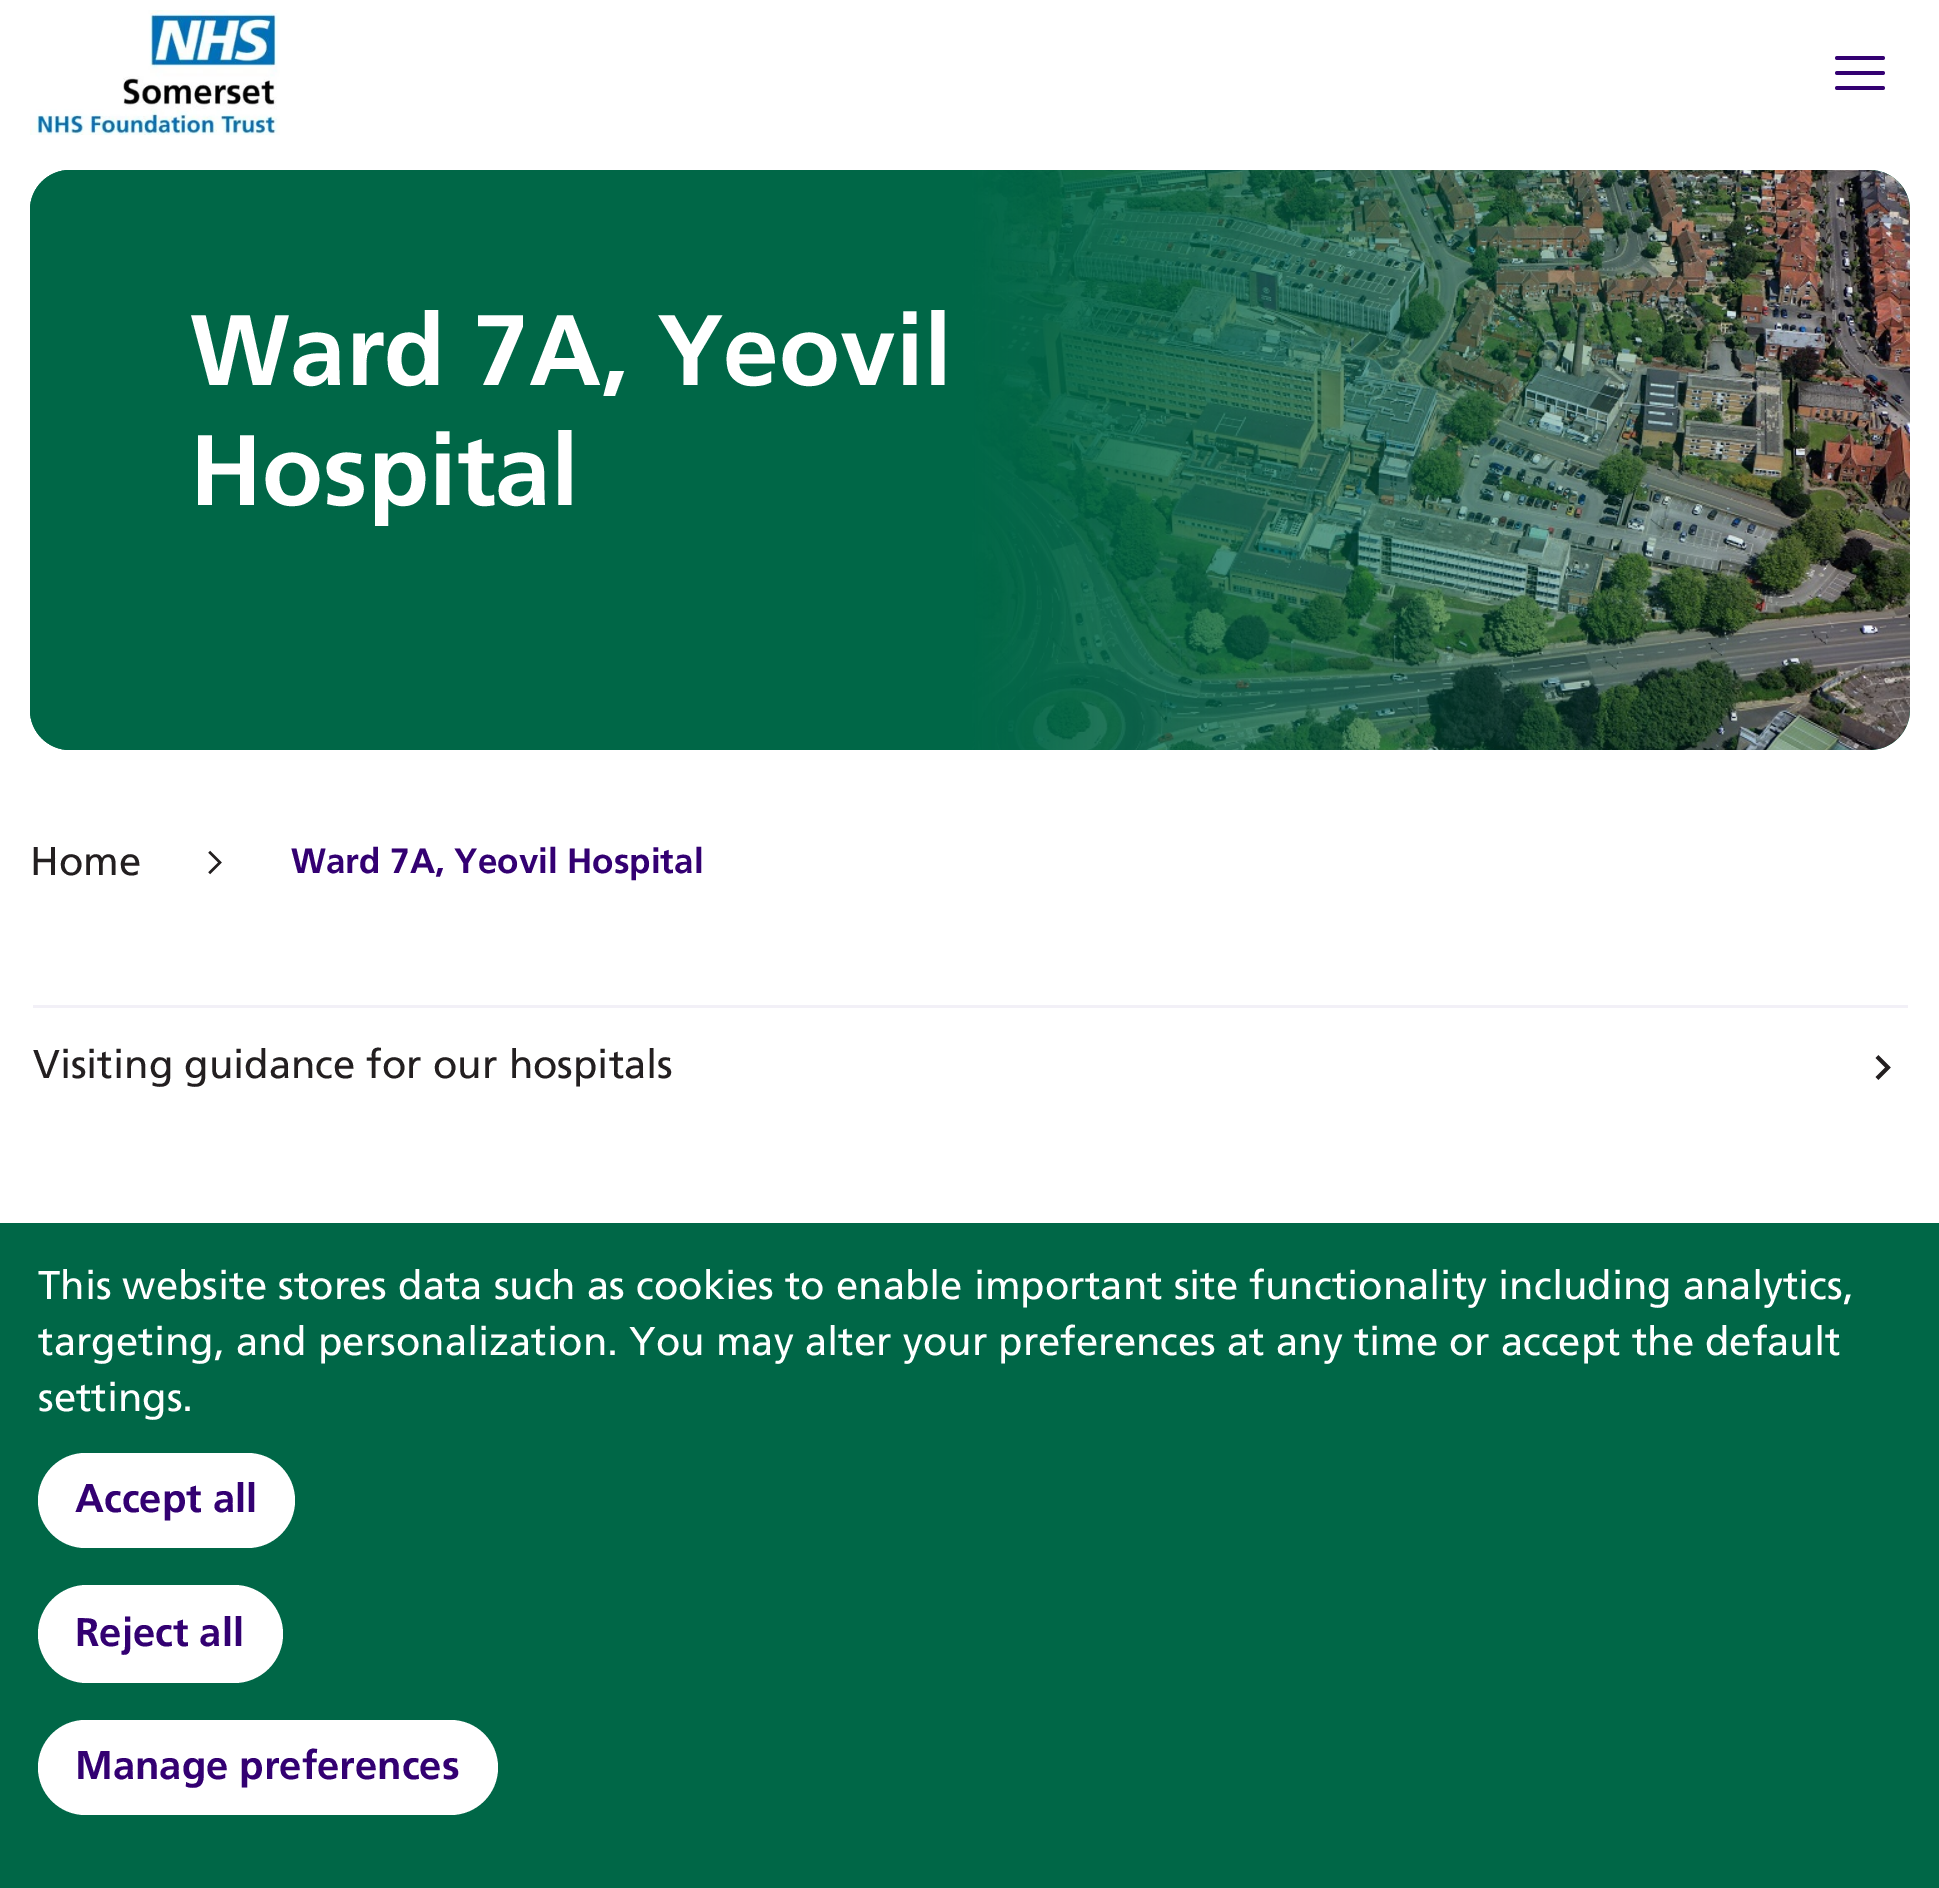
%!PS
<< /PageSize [1939 1888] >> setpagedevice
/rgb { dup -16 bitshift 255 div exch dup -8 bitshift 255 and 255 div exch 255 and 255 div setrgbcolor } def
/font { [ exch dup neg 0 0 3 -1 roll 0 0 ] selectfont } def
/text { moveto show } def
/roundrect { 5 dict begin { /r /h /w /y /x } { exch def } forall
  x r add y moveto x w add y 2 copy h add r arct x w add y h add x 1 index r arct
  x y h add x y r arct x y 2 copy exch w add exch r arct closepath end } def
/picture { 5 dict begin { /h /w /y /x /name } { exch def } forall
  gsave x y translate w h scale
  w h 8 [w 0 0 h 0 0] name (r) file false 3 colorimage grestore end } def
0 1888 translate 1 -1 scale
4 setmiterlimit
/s1 { /Frutiger-Bold 100 font 16#FFFFFF rgb } def
/s2 { /Frutiger-Regular 40 font 16#231F20 rgb } def
/s3 { /Frutiger-Bold 35 font 16#330072 rgb } def
/s4 { /Frutiger-Regular 40 font 16#FFFFFF rgb } def
/s5 { /Frutiger-Bold 40 font 16#330072 rgb } def
16#FFFFFF rgb
0 0 1939 1888 rectfill
(pic1.raw) 30 10 250 125 picture
16#330072 rgb
3.8 setlinewidth
1 setlinecap
1837 58 moveto 1883 58 lineto 1837 73 moveto 1883 73 lineto 1837 73 moveto 1883 73 lineto 1837 88 moveto 1883 88 lineto stroke
16#006747 rgb
30 170 1880 580 40 roundrect fill
70 170 moveto 970 170 lineto 970 750 lineto 70 750 lineto 48 750 30 732 30 710 curveto 30 210 lineto 30 188 48 170 70 170 curveto closepath fill
s1
(Ward 7A, Yeovil) 190 385 text
(Hospital) 190 505 text
(pic2.raw) 970 170 940 580 picture
s2
(Home) 30 875 text
(pic3.raw) 208 850 14 25 picture
s3
(Ward 7A, Yeovil Hospital) 291 873 text
16#F2F0F7 rgb
33 1005 1875 3 rectfill
s2
(Visiting guidance for our hospitals) 33 1078 text
(pic4.raw) 1875 1055 16 25 picture
16#006747 rgb
0 1223 1939 665 rectfill
s4
(This website stores data such as cookies to enable important site functionality including analytics,) 38 1299 text
(targeting, and personalization. You may alter your preferences at any time or accept the default) 38 1355 text
(settings.) 38 1411 text
38 1453 257 95 47.5 roundrect fill
s5
(Accept all) 75 1512 text
16#FFFFFF rgb
38 1585 245 98 49 roundrect fill
s5
(Reject all) 75 1646 text
16#FFFFFF rgb
38 1720 460 95 47.5 roundrect fill
s5
(Manage preferences) 75 1779 text
showpage
